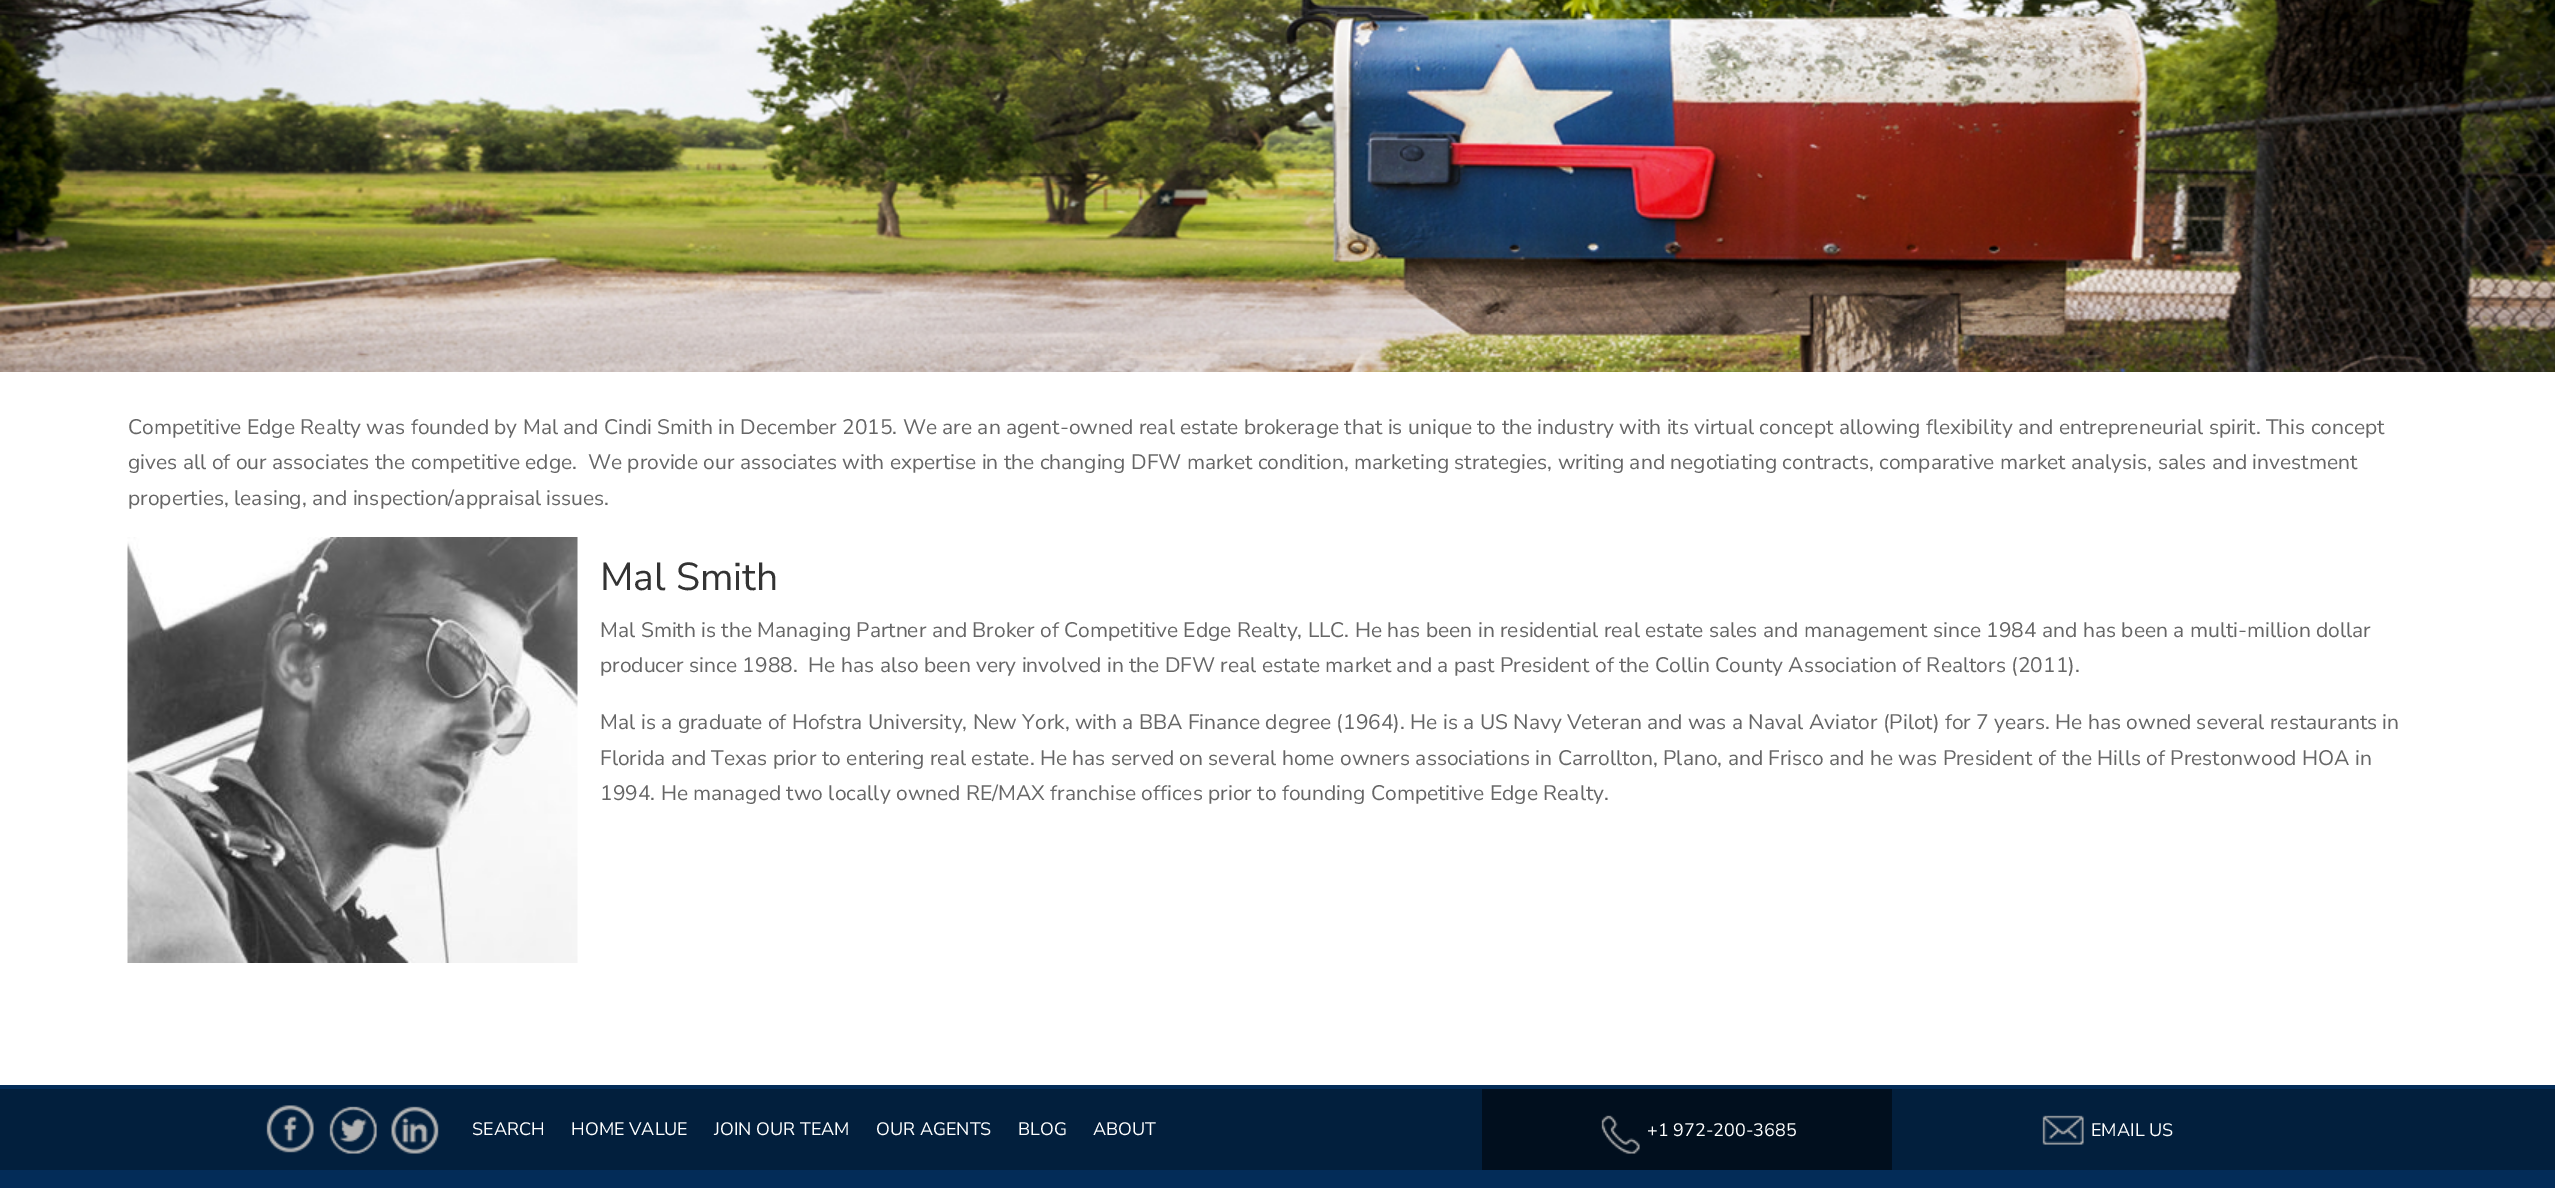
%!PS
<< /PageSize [2555 1188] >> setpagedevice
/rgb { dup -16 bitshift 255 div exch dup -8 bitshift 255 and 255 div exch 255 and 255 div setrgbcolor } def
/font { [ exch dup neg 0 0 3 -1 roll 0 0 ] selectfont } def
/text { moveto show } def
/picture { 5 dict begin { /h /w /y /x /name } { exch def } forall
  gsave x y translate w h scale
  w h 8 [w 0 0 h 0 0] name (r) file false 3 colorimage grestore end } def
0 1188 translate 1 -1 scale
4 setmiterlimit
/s1 { /NunitoSans-Regular 21 font 16#666666 rgb } def
/s2 { /NunitoSans-Regular 39 font 16#333333 rgb } def
/s3 { /NunitoSans-Regular 18 font 16#FFFFFF rgb } def
16#FFFFFF rgb
0 0 2555 1188 rectfill
(pic1.raw) 0 0 2555 372 picture
s1
(Competitive Edge Realty was founded by Mal and Cindi Smith in December 2015. We are an agent-owned real estate brokerage that is unique to the industry with its virtual concept allowing flexibility and entrepreneurial spirit. This concept) 128 434 text
(gives all of our associates the competitive edge.  We provide our associates with expertise in the changing DFW market condition, marketing strategies, writing and negotiating contracts, comparative market analysis, sales and investment) 128 469 text
(properties, leasing, and inspection/appraisal issues.) 128 505 text
(pic2.raw) 127 537 451 426 picture
s2
(Mal Smith) 600 590 text
s1
(Mal Smith is the Managing Partner and Broker of Competitive Edge Realty, LLC. He has been in residential real estate sales and management since 1984 and has been a multi-million dollar) 600 637 text
(producer since 1988.  He has also been very involved in the DFW real estate market and a past President of the Collin County Association of Realtors \(2011\).) 600 672 text
(Mal is a graduate of Hofstra University, New York, with a BBA Finance degree \(1964\). He is a US Navy Veteran and was a Naval Aviator \(Pilot\) for 7 years. He has owned several restaurants in) 600 729 text
(Florida and Texas prior to entering real estate. He has served on several home owners associations in Carrollton, Plano, and Frisco and he was President of the Hills of Prestonwood HOA in) 600 765 text
(1994. He managed two locally owned RE/MAX franchise offices prior to founding Competitive Edge Realty.) 600 800 text
16#032C58 rgb
0 1085 2555 103 rectfill
16#021F3D rgb
0 1089 2555 81 rectfill
(pic3.raw) 266 1105 48 48 picture
(pic4.raw) 329 1106 48 48 picture
(pic5.raw) 391 1106 48 48 picture
s3
(SEARCH) 472 1135 text
(HOME VALUE) 571 1135 text
(JOIN OUR TEAM) 714 1135 text
(OUR AGENTS) 876 1135 text
(BLOG) 1018 1135 text
(ABOUT) 1093 1135 text
16#010F1E rgb
1482 1089 410 81 rectfill
(pic6.raw) 1601 1115 39 39 picture
s3
(+1 972-200-3685) 1647 1136 text
(pic7.raw) 2042 1115 42 30 picture
(EMAIL US) 2091 1136 text
showpage
